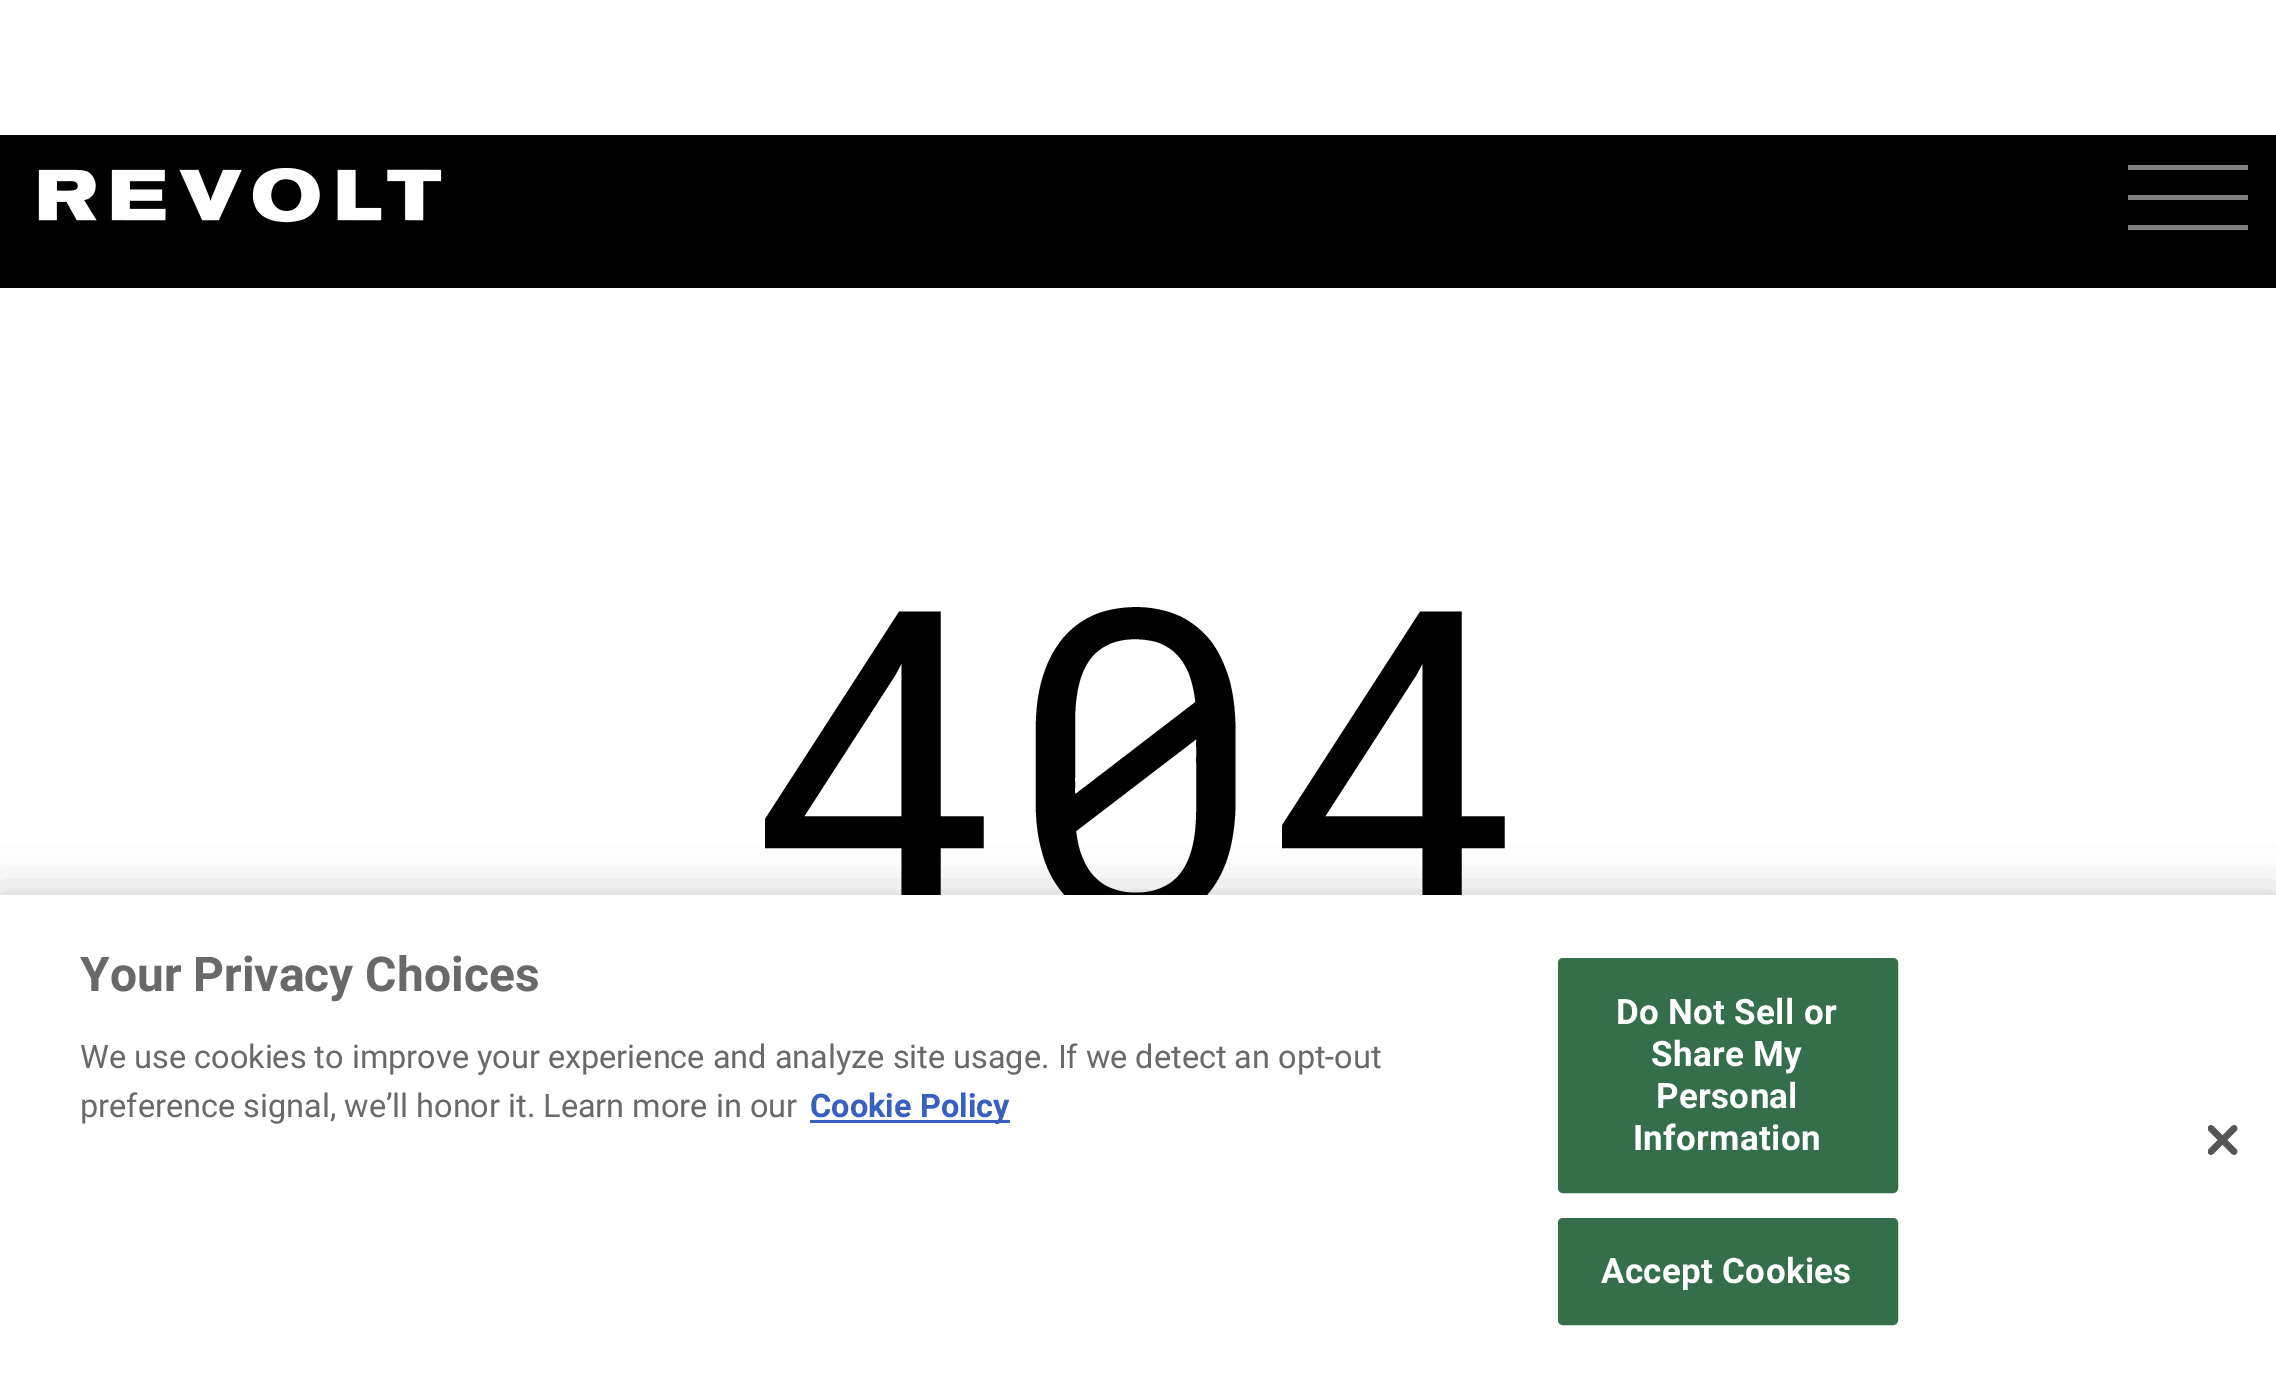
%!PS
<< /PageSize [2276 1374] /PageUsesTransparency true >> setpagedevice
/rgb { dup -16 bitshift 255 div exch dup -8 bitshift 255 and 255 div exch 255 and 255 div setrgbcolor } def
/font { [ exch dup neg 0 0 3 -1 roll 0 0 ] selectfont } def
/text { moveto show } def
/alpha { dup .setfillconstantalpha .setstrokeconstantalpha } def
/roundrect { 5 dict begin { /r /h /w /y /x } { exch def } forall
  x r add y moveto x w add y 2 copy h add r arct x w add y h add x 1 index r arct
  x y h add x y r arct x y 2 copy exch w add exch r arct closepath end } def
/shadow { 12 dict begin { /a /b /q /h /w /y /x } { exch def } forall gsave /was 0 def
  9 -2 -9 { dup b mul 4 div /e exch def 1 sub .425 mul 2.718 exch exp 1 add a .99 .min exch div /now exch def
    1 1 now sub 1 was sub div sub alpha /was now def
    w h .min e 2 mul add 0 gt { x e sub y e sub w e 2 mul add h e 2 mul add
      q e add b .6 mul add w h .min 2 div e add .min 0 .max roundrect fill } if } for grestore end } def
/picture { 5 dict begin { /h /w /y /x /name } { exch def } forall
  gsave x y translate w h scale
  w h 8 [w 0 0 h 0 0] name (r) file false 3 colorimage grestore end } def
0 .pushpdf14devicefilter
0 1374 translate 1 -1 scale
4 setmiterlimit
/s1 { /RobotoMono-Regular 434 font 16#000000 rgb } def
/s2 { /Roboto-Bold 48 font 16#696969 rgb } def
/s3 { /Roboto-Regular 32.5 font 16#696969 rgb } def
/s4 { /Roboto-Bold 32.5 font 16#3860BE rgb } def
16#FFFFFF rgb
0 0 2276 1374 rectfill
16#000000 rgb
0 135 2276 153 rectfill
(pic1.raw) 38 167 404 56 picture
16#808080 rgb
2128 195 120 5 rectfill
2128 165 120 5 rectfill
2128 225 120 5 rectfill
gsave
765 585 748 355 rectclip
s1
(404) 745 920 text
grestore
16#000000 rgb
0 895 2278 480 0 22.5 0.2 shadow
16#FFFFFF rgb
0 895 2276 479 rectfill
s2
(Your Privacy Choices) 80 991 text
s3
(We use cookies to improve your experience and analyze site usage. If we detect an opt-out) 80 1068 text
(preference signal, we’ll honor it. Learn more in our) 80 1117 text
16#3860BE rgb
810 1120 200 3 rectfill
s4
(Cookie Policy) 810 1117 text
16#346E4A rgb
1559.5 959.5 337 232 3.5 roundrect gsave fill grestore
3 setlinewidth
stroke
/Roboto-Bold 35 font
16#FFFFFF rgb
1616 1024 moveto 0.3 0 (Do Not Sell or) ashow
1651 1066 moveto 0.3 0 (Share My) ashow
1656 1108 moveto 0.3 0 (Personal) ashow
1633 1150 moveto 0.3 0 (Information) ashow
16#346E4A rgb
1559.5 1219.5 337 104 3.5 roundrect gsave fill grestore
stroke
16#FFFFFF rgb
1601 1283 moveto 0.3 0 (Accept Cookies) ashow
(pic2.raw) 2208 1125 30 30 picture
.poppdf14devicefilter showpage
